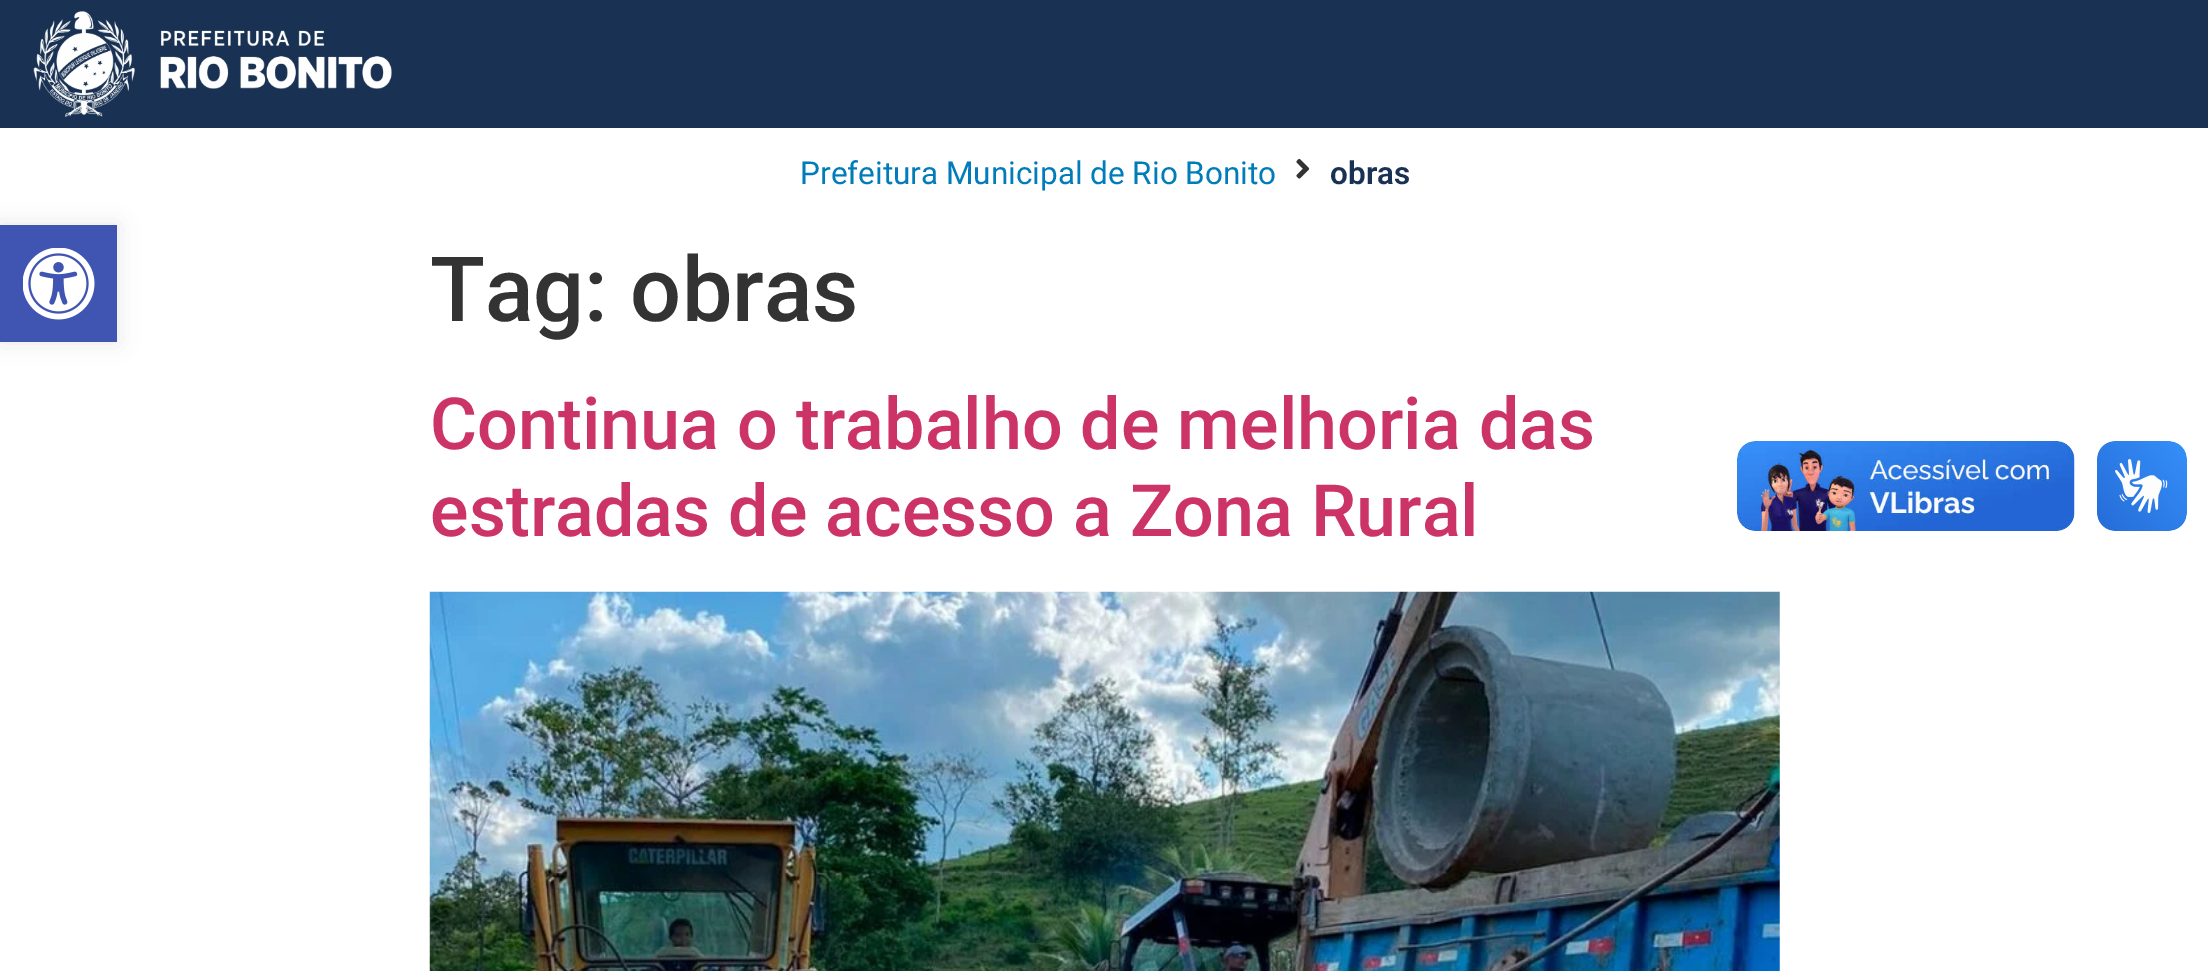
%!PS
<< /PageSize [2208 971] /PageUsesTransparency true >> setpagedevice
/rgb { dup -16 bitshift 255 div exch dup -8 bitshift 255 and 255 div exch 255 and 255 div setrgbcolor } def
/font { [ exch dup neg 0 0 3 -1 roll 0 0 ] selectfont } def
/text { moveto show } def
/alpha { dup .setfillconstantalpha .setstrokeconstantalpha } def
/roundrect { 5 dict begin { /r /h /w /y /x } { exch def } forall
  x r add y moveto x w add y 2 copy h add r arct x w add y h add x 1 index r arct
  x y h add x y r arct x y 2 copy exch w add exch r arct closepath end } def
/shadow { 12 dict begin { /a /b /q /h /w /y /x } { exch def } forall gsave /was 0 def
  9 -2 -9 { dup b mul 4 div /e exch def 1 sub .425 mul 2.718 exch exp 1 add a .99 .min exch div /now exch def
    1 1 now sub 1 was sub div sub alpha /was now def
    w h .min e 2 mul add 0 gt { x e sub y e sub w e 2 mul add h e 2 mul add
      q e add b .6 mul add w h .min 2 div e add .min 0 .max roundrect fill } if } for grestore end } def
/picture { 5 dict begin { /h /w /y /x /name } { exch def } forall
  gsave x y translate w h scale
  w h 8 [w 0 0 h 0 0] name (r) file false 3 colorimage grestore end } def
0 .pushpdf14devicefilter
0 971 translate 1 -1 scale
4 setmiterlimit
/s1 { /Roboto-Regular 31.5 font 16#017CBA rgb } def
/s2 { /Roboto-SemiBold 31.5 font 16#193253 rgb } def
/s3 { /Roboto-Medium 90 font 16#333333 rgb } def
/s4 { /Roboto-Medium 72 font 16#CC3366 rgb } def
16#FFFFFF rgb
0 0 2208 971 rectfill
16#193253 rgb
0 0 2208 128 rectfill
(pic1.raw) 33 11 359 106 picture
s1
(Prefeitura Municipal de Rio Bonito) 800 184 text
(pic2.raw) 1296 158 14 21 picture
s2
(obras) 1330 184 text
16#000000 rgb
0 225 117 117 0 11 0.1 shadow
16#4054B2 rgb
0 225 117 117 rectfill
(pic3.raw) 23 248 72 72 picture
s3
(Tag: obras) 430 321 text
s4
(Continua o trabalho de melhoria das) 430 449 text
(estradas de acesso a Zona Rural) 430 536 text
(pic4.raw) 429 591 1351 380 picture
(pic5.raw) 1737 441 338 90 picture
(pic6.raw) 2097 441 90 90 picture
.poppdf14devicefilter showpage
